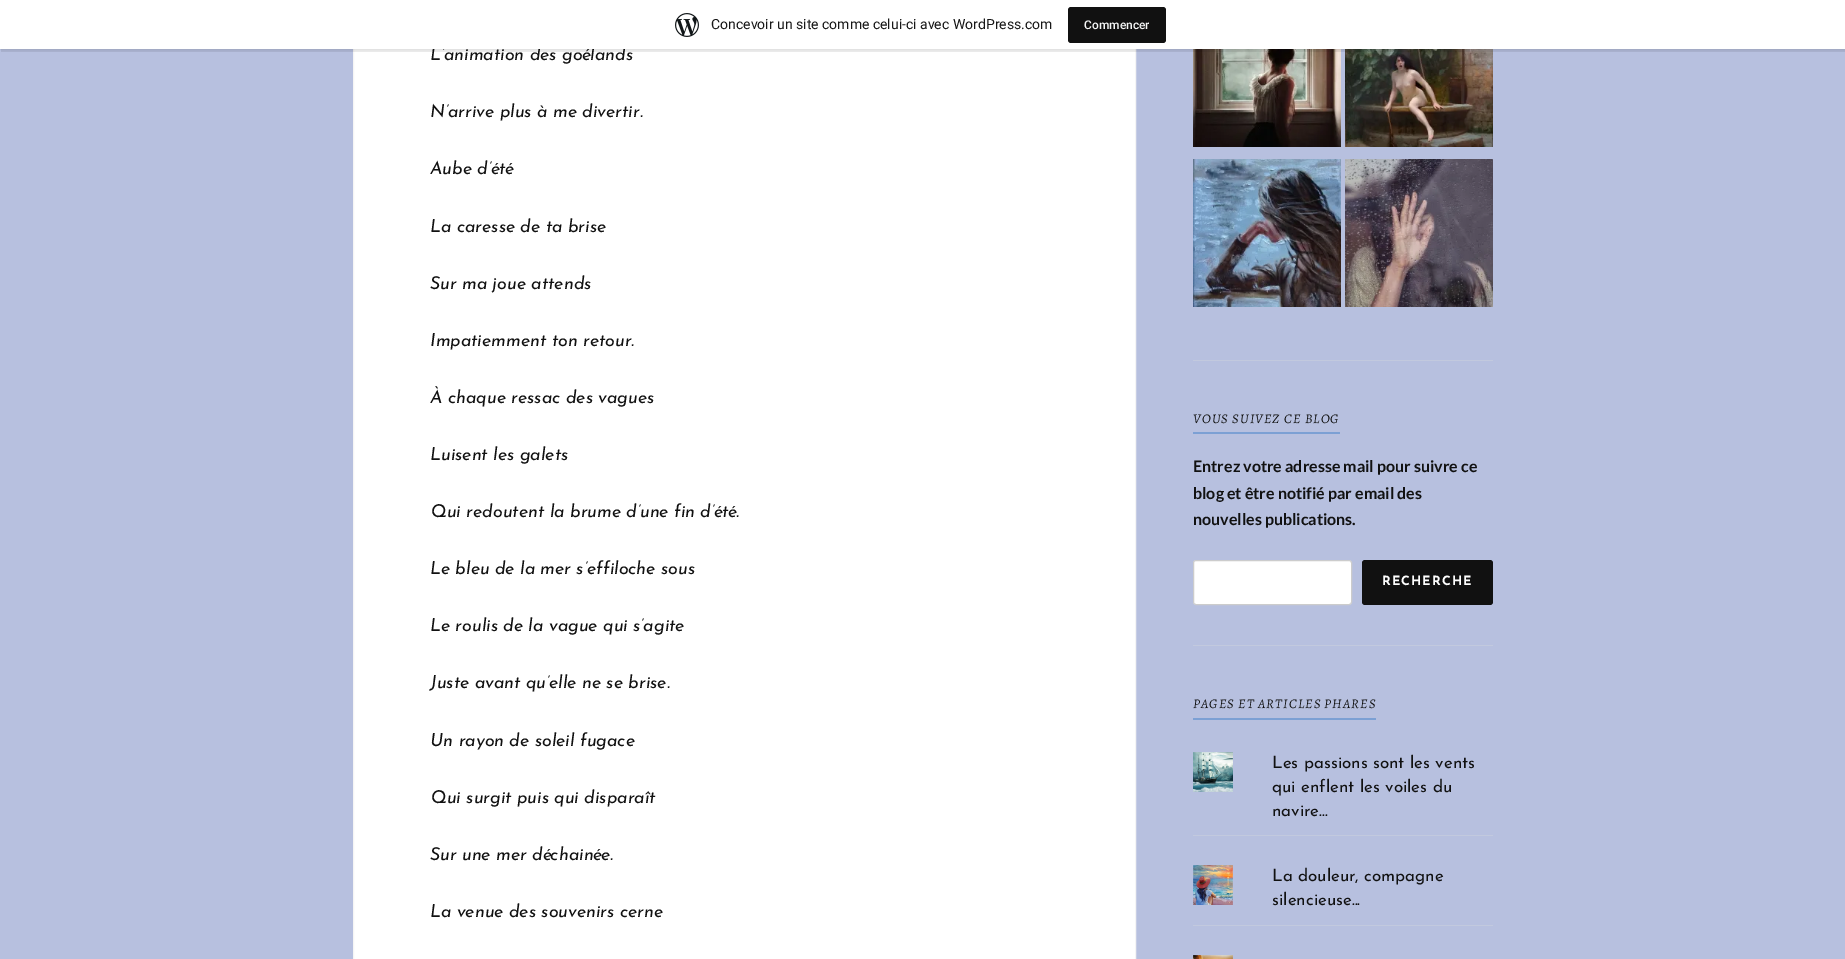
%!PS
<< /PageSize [1845 959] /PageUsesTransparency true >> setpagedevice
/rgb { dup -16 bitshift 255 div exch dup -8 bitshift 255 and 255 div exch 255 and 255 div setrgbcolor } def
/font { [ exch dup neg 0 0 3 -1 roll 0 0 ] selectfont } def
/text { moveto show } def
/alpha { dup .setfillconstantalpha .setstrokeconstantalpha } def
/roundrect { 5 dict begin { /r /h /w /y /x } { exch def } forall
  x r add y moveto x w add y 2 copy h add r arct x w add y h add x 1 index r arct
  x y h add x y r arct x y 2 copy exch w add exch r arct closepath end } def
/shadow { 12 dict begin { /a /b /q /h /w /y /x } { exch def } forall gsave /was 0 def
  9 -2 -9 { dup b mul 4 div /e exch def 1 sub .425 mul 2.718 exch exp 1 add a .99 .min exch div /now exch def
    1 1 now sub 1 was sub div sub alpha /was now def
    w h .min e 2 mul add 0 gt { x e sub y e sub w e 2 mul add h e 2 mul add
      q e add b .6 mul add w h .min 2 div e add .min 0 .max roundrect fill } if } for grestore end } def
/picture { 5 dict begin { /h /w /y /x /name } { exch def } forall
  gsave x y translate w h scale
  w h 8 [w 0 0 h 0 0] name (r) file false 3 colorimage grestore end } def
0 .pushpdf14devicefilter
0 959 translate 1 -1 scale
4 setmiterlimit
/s1 { /JosefinSans-Italic 17.8 font 16#111111 rgb } def
/s2 { /Roboto-Regular 14 font 16#171717 rgb } def
/s3 { /Roboto-Medium 12 font 16#F6F7F7 rgb } def
/s4 { /Lato-Bold 16 font 16#111111 rgb } def
/s5 { /JosefinSans-Regular 17 font 16#111111 rgb } def
16#B7C0DF rgb
0 0 1845 959 rectfill
16#FFFFFF rgb
354 49 781 910 rectfill
16#F5F5F5 rgb
353.5 -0.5 782 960 rectstroke
(pic2.raw) 1193 49 148 98 picture
(pic3.raw) 1345 49 148 98 picture
16#000000 rgb
0 1 1845 49 0 1 0.05 shadow
0.08 alpha
1 49 moveto 1 52 lineto 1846 52 lineto 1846 3 lineto 1845 3 lineto 1845 49 lineto closepath fill
1 alpha
s1
(L’animation des goélands) 430 60 text
16#FFFFFF rgb
0 0 1845 49 rectfill
(pic1.raw) 675 13 24 24 picture
s2
(Concevoir un site comme celui-ci avec WordPress.com) 711 29 text
16#111111 rgb
1068 7 98 36 3 roundrect fill
s3
(Commencer) 1084 29 text
s1
(N’arrive plus à me divertir.) 430 117 text
(Aube d’été) 430 174 text
(La caresse de ta brise) 430 232 text
(Sur ma joue attends) 430 289 text
(Impatiemment ton retour.) 430 346 text
(À chaque ressac des vagues) 430 403 text
(Luisent les galets) 430 460 text
(Qui redoutent la brume d’une fin d’été.) 430 517 text
(Le bleu de la mer s’effiloche sous) 430 574 text
(Le roulis de la vague qui s’agite) 430 631 text
(Juste avant qu’elle ne se brise.) 430 688 text
(Un rayon de soleil fugace) 430 746 text
(Qui surgit puis qui disparaît) 430 803 text
(Sur une mer déchainée.) 430 860 text
(La venue des souvenirs cerne) 430 917 text
(pic4.raw) 1193 159 148 148 picture
(pic5.raw) 1345 159 148 148 picture
16#C2C9DE rgb
1193 360 300 1 rectfill
16#7CA0D4 rgb
1193 432 147 2 rectfill
/Alegreya-Italic 13.25 font
16#111111 rgb
1193 423 moveto 1 0 (VOUS SUIVEZ CE BLOG) ashow
s4
(Entrez votre adresse mail pour suivre ce) 1193 472 text
(blog et être notifié par email des) 1193 499 text
(nouvelles publications.) 1193 525 text
16#FFFFFF rgb
1193.5 560.5 158 44 2.5 roundrect gsave fill grestore
16#CCCCCC rgb
stroke
16#111111 rgb
1362 560 131 45 3 roundrect fill
/JosefinSans-Bold 12.75 font
16#FFFFFF rgb
1382 585 moveto 1 0 (RECHERCHE) ashow
16#C2C9DE rgb
1193 645 300 1 rectfill
16#7CA0D4 rgb
1193 718 183 2 rectfill
/Alegreya-Italic 13.25 font
16#111111 rgb
1193 708 moveto 1 0 (PAGES ET ARTICLES PHARES) ashow
16#C2C9DE rgb
1193 835 300 1 rectfill
(pic6.raw) 1193 752 40 40 picture
s5
(Les passions sont les vents) 1272 768 text
(qui enflent les voiles du) 1272 792 text
(navire...) 1272 816 text
16#C2C9DE rgb
1193 925 300 1 rectfill
(pic7.raw) 1193 865 40 40 picture
s5
(La douleur, compagne) 1272 881 text
(silencieuse...) 1272 905 text
(pic8.raw) 1193 955 40 4 picture
.poppdf14devicefilter showpage
